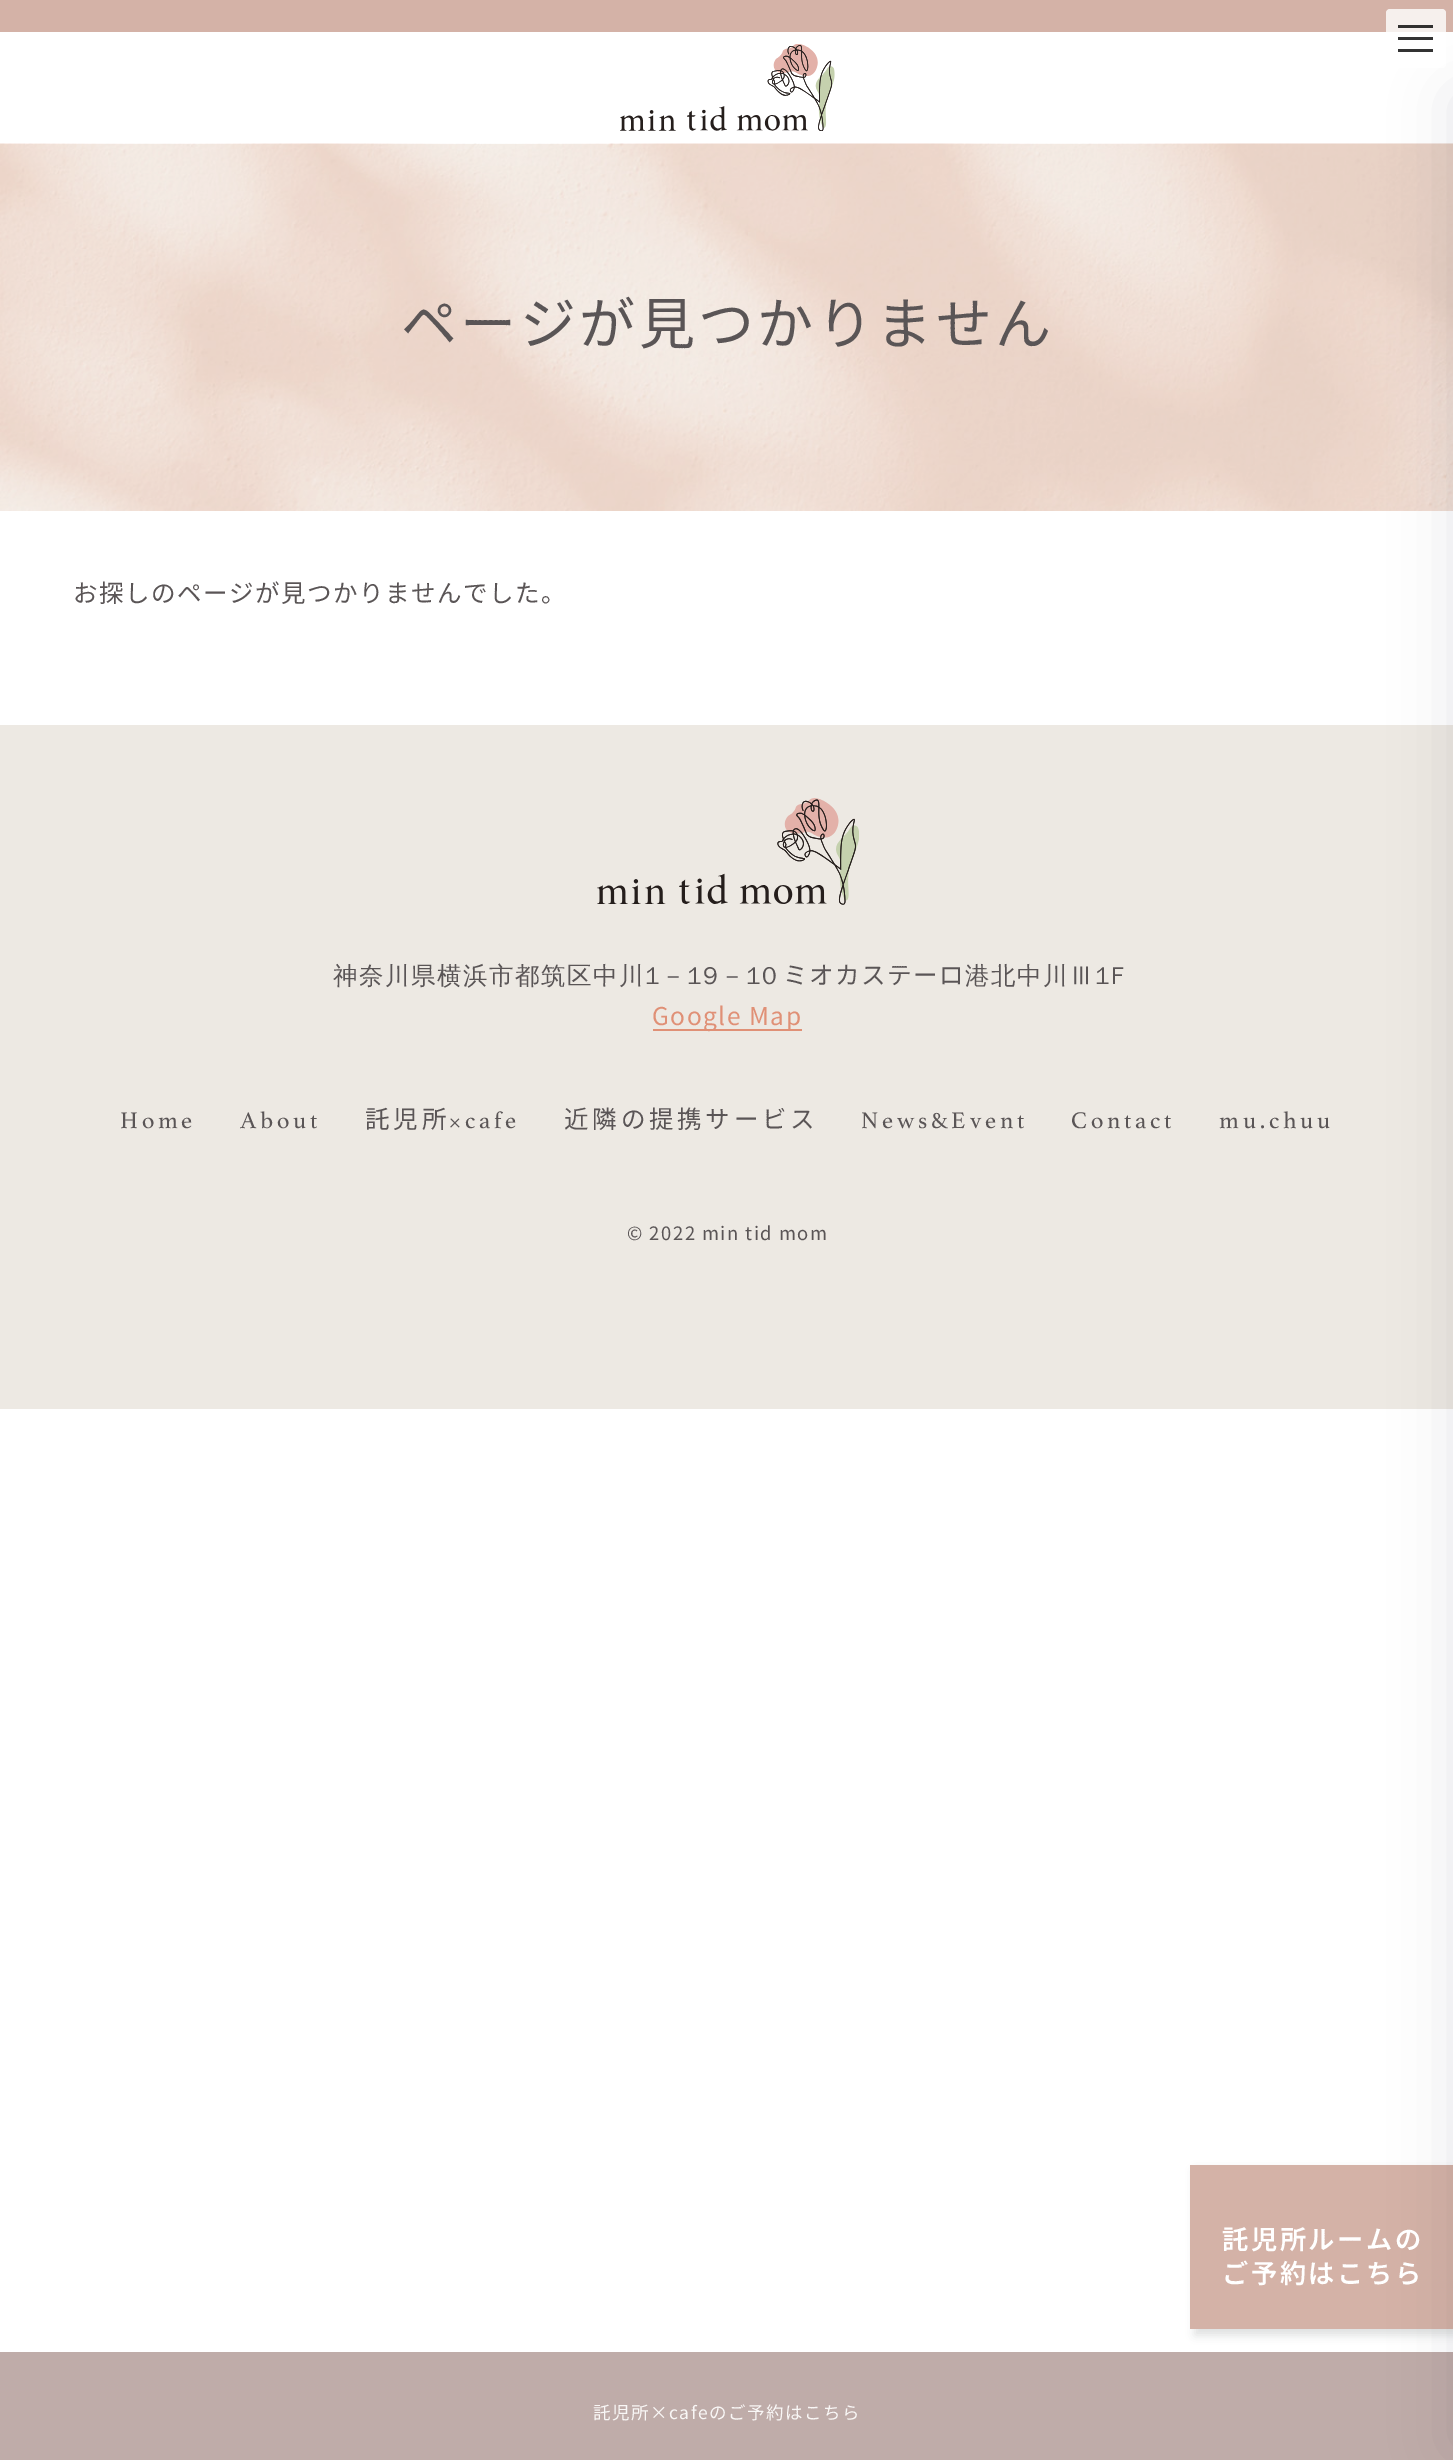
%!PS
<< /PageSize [1453 2460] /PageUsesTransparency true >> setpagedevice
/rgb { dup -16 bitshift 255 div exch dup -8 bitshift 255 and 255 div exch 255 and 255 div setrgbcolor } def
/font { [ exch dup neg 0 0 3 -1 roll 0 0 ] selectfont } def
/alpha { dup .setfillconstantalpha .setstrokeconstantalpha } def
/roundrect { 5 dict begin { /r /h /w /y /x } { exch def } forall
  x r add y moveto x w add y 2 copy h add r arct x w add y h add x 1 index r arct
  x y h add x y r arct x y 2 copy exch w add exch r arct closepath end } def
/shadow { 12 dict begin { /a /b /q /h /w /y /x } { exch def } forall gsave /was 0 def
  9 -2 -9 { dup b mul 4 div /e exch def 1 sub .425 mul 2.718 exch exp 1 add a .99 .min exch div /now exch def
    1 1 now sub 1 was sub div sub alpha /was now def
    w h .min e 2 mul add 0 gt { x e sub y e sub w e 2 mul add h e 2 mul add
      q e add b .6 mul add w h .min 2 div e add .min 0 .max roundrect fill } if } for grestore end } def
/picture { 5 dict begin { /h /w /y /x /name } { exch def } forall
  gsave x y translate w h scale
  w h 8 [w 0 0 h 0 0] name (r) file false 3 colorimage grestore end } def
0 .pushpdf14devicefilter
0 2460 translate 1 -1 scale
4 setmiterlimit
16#FFFFFF rgb
0 0 1453 2460 rectfill
(pic1.raw) 0 143 1453 368 picture
16#EDE9E3 rgb
0 725 1453 684 rectfill
16#D4B2A7 rgb
0 0 1453 32 rectfill
16#272C35 rgb
1195 2170 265 165 0 4.5 0.15 shadow
16#D4B2A7 rgb
1190 2165 263 164 rectfill
16#BFACA9 rgb
0 2352 1453 108 rectfill
16#00051E rgb
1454 95 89 2352 0 30 0.1 shadow
0.8 alpha
16#FFFFFF rgb
1386 9 60 59 4 roundrect fill
1 alpha
16#31302F rgb
1398 25 35 3 rectfill
16#333333 rgb
1398 37 35 3 rectfill
1398 49 35 3 rectfill
/NotoSansJP-Regular 56 font
16#5A5556 rgb
401 344 moveto 3.4 0 (ページが見つかりません) ashow
/NotoSansJP-Regular 24.5 font
73 602 moveto 1.5 0 (お探しのページが見つかりませんでした。) ashow
(pic2.raw) 597 798 262 107 picture
/WenQuanYiZenHei-Medium 24.5 font
333 984 moveto 1.5 0 (神奈川県横浜市都筑区中川1－19－10) ashow
/NotoSansJP-Regular 24.5 font
783 984 moveto 1.5 0 (ミオカステーロ) ashow
/WenQuanYiZenHei-Medium 24.5 font
965 984 moveto 1.5 0 (港北中川Ⅲ1F) ashow
16#E09076 rgb
653 1029 149 2 rectfill
/NotoSansJP-Regular 24.5 font
652 1025 moveto 1.5 0 (Google Map) ashow
/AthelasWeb-Regular 24.5 font
16#5A5556 rgb
120 1128 moveto 3.75 0 (Home) ashow
240 1128 moveto 3.75 0 (About) ashow
/NotoSansJP-Regular 24.5 font
365 1128 moveto 3.75 0 (託児所) ashow
/AthelasWeb-Regular 24.5 font
449 1128 moveto 3.75 0 (×cafe) ashow
/NotoSansJP-Regular 24.5 font
564 1128 moveto 3.75 0 (近隣の提携サービス) ashow
/AthelasWeb-Regular 24.5 font
861 1128 moveto 3.75 0 (News&Event) ashow
1071 1128 moveto 3.75 0 (Contact) ashow
1219 1128 moveto 3.75 0 (mu.chuu) ashow
/NotoSansJP-Regular 18.4 font
627 1240 moveto 1.5 0 (© 2022 min tid mom) ashow
(pic3.raw) 620 44 215 87 picture
/NotoSansJP-SemiBold 26.25 font
16#FFFFFF rgb
1222 2249 moveto 2.5 0 (託児所ルームの) ashow
1222 2283 moveto 2.5 0 (ご予約はこちら) ashow
/NotoSansJP-Regular 17.5 font
16#F9F7F6 rgb
593 2419 moveto 1.5 0 (託児所×cafeのご予約はこちら) ashow
.poppdf14devicefilter showpage
